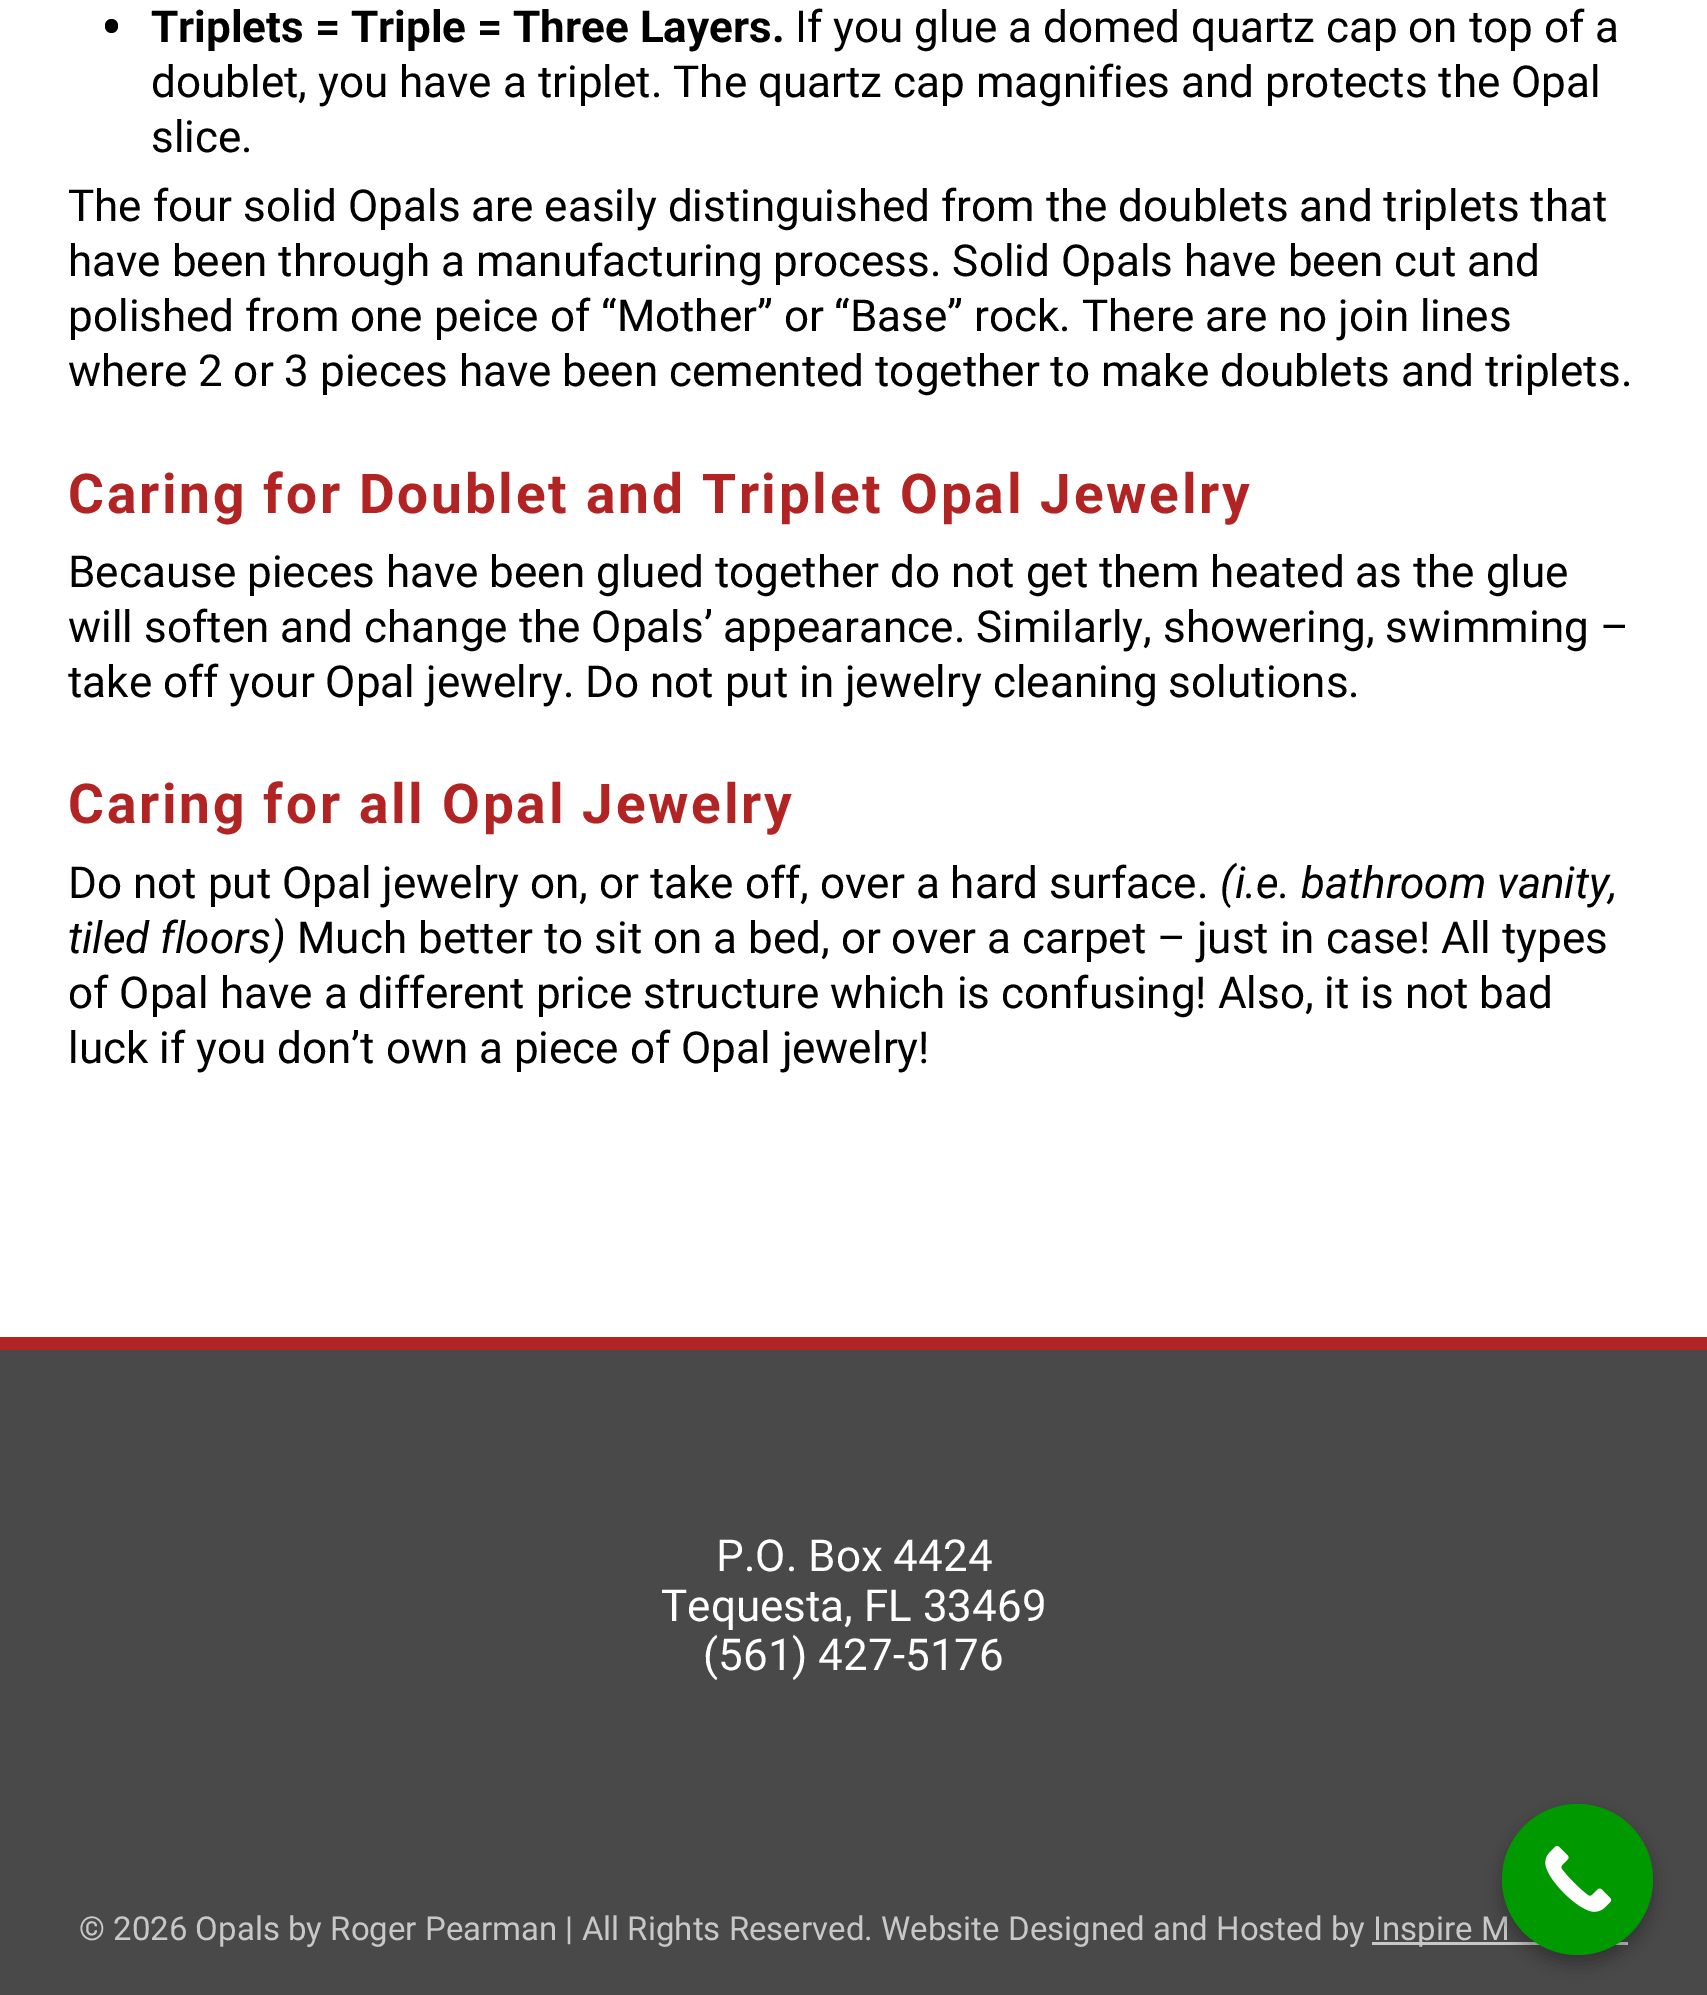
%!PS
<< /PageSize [1707 1995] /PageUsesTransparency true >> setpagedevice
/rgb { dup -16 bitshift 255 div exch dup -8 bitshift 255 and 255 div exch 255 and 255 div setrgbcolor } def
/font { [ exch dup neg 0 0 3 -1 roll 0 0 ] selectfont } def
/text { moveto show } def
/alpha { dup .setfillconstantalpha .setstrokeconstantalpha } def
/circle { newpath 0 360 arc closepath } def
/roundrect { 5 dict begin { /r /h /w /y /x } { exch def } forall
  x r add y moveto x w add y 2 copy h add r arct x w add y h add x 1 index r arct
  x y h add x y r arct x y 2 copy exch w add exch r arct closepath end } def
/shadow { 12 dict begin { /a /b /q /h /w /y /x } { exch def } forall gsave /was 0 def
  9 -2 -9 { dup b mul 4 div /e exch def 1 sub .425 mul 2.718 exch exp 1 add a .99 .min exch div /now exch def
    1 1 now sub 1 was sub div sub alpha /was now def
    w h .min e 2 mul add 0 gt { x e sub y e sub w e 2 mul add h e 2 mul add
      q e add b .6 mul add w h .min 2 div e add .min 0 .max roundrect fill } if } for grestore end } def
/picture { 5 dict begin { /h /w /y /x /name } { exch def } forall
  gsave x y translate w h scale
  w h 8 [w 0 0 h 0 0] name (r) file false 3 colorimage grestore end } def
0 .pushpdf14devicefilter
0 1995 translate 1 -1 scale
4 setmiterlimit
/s1 { /Roboto-Bold 44 font 16#000000 rgb } def
/s2 { /Roboto-Regular 44 font 16#000000 rgb } def
/s3 { /Roboto-Italic 44 font 16#000000 rgb } def
/s4 { /Roboto-Regular 44 font 16#FFFFFF rgb } def
/s5 { /Roboto-Regular 33 font 16#C8C8C8 rgb } def
16#FFFFFF rgb
0 0 1707 1995 rectfill
16#000000 rgb
105 19 13 14 6.5 roundrect fill
s1
(Triplets = Triple = Three Layers.) 151 42 text
s2
(If you glue a domed quartz cap on top of a) 795 42 text
(doublet, you have a triplet. The quartz cap magnifies and protects the Opal) 151 97 text
(slice.) 151 152 text
(The four solid Opals are easily distinguished from the doublets and triplets that) 68 221 text
(have been through a manufacturing process. Solid Opals have been cut and) 68 276 text
(polished from one peice of “Mother” or “Base” rock. There are no join lines) 68 331 text
(where 2 or 3 pieces have been cemented together to make doublets and triplets.) 68 386 text
/Roboto-Bold 55 font
16#B22424 rgb
68 513 moveto 2.75 0 (Caring for Doublet and Triplet Opal Jewelry) ashow
s2
(Because pieces have been glued together do not get them heated as the glue) 68 587 text
(will soften and change the Opals’ appearance. Similarly, showering, swimming –) 68 642 text
(take off your Opal jewelry. Do not put in jewelry cleaning solutions.) 68 697 text
/Roboto-Bold 55 font
16#B22424 rgb
68 823 moveto 2.75 0 (Caring for all Opal Jewelry) ashow
s2
(Do not put Opal jewelry on, or take off, over a hard surface.) 68 898 text
s3
(\(i.e. bathroom vanity,) 1220 898 text
(tiled floors\)) 68 953 text
s2
(Much better to sit on a bed, or over a carpet – just in case! All types) 297 953 text
(of Opal have a different price structure which is confusing! Also, it is not bad) 68 1008 text
(luck if you don’t own a piece of Opal jewelry!) 68 1063 text
16#494949 rgb
0 1350 1707 645 rectfill
16#B22424 rgb
0 1337 1707 13 rectfill
s4
(P.O. Box 4424) 716 1571 text
(Tequesta, FL 33469) 661 1621 text
(\(561\) 427-5176) 703 1670 text
s5
(© 2026 Opals by Roger Pearman | All Rights Reserved. Website Designed and Hosted by) 79 1940 text
1372 1942 256 3 rectfill
(Inspire M) 1373 1940 text
16#000000 rgb
1502 1812 151 152 75.5 8 0.3 shadow
16#009900 rgb
1577.5 1879.5 75.5 circle fill
(pic1.raw) 1545 1846 67 66 picture
.poppdf14devicefilter showpage
